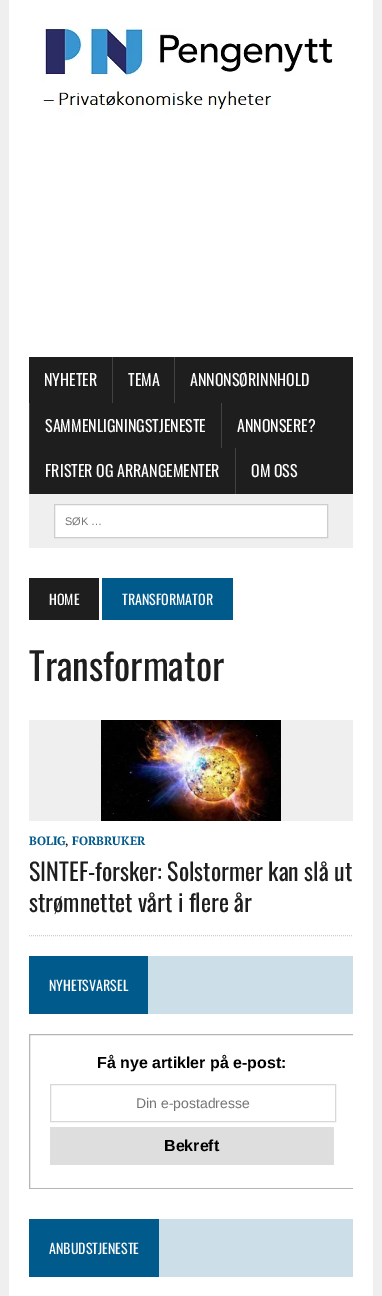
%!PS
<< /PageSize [382 1296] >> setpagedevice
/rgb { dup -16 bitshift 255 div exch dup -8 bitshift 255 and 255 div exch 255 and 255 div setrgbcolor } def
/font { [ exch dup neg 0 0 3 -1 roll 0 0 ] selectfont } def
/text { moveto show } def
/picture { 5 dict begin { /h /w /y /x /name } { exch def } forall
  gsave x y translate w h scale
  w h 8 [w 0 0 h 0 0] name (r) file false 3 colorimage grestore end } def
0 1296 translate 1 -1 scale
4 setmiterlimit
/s1 { /Oswald-Regular 16 font 16#FFFFFF rgb } def
/s2 { /LiberationSans-Regular 11 font 16#757575 rgb } def
/s3 { /Oswald-Regular 14 font 16#FFFFFF rgb } def
/s4 { /Oswald-Regular 38 font 16#1F1E1E rgb } def
/s5 { /PTSerif-Bold 12 font 16#005A8C rgb } def
/s6 { /PTSerif-Regular 12 font 16#000000 rgb } def
/s7 { /Oswald-Regular 24 font 16#1F1E1E rgb } def
/s8 { /LiberationSans-Bold 16 font 16#000000 rgb } def
/s9 { /LiberationSans-Regular 14 font 16#757575 rgb } def
16#EFEFEF rgb
0 0 382 1296 rectfill
16#FFFFFF rgb
9 0 364 1296 rectfill
(pic1.raw) 41 27 292 89 picture
16#1F1E1E rgb
29 357 324 137 rectfill
s1
(NYHETER) 44 386 text
16#424242 rgb
112 357 1 46 rectfill
s1
(TEMA) 128 386 text
16#424242 rgb
174 357 1 46 rectfill
s1
(ANNONSØRINNHOLD) 190 386 text
16#424242 rgb
29 403 1 91 rectfill
s1
(SAMMENLIGNINGSTJENESTE) 45 432 text
16#424242 rgb
221 403 1 45 rectfill
s1
(ANNONSERE?) 237 432 text
(FRISTER OG ARRANGEMENTER) 45 477 text
16#424242 rgb
235 448 1 46 rectfill
s1
(OM OSS) 251 477 text
16#EFEFEF rgb
29 494 324 54 rectfill
16#FFFFFF rgb
54.5 504.5 moveto 327.5 504.5 lineto 327.5 537.5 lineto 54.5 537.5 lineto closepath gsave fill grestore
16#CDCDCD rgb
stroke
s2
(SØK …) 65 525 text
16#1F1E1E rgb
29 578 70 42 rectfill
s3
(HOME) 49 605 text
16#005A8C rgb
102 578 131 42 rectfill
s3
(TRANSFORMATOR) 122 605 text
s4
(Transformator) 29 681 text
16#EFEFEF rgb
29 720 324 101 rectfill
(pic2.raw) 101 720 180 101 picture
s5
(BOLIG) 29 845 text
s6
(,) 65 845 text
s5
(FORBRUKER) 72 845 text
s7
(SINTEF-forsker: Solstormer kan slå ut) 29 881 text
(strømnettet vårt i flere år) 29 912 text
16#CDCDCD rgb
[1 1] 0 setdash
29 935.5 moveto 353 935.5 lineto stroke
16#CCDEE8 rgb
148 956 205 58 rectfill
16#005A8C rgb
29 956 119 58 rectfill
s3
(NYHETSVARSEL) 49 991 text
gsave
29 956 324 233 rectclip
16#B5B5B5 rgb
[] 0 setdash
29.5 1034.5 325 154 rectstroke
grestore
s8
(Få nye artikler på e-post:) 97 1068 text
16#D7D8D8 rgb
[] 0 setdash
50.5 1084.5 285 37 rectstroke
s9
(Din e-postadresse) 136 1108 text
16#DEDEDE rgb
50 1127 284 38 rectfill
s8
(Bekreft) 164 1151 text
16#CCDEE8 rgb
159 1219 194 58 rectfill
16#005A8C rgb
29 1219 130 58 rectfill
s3
(ANBUDSTJENESTE) 49 1254 text
showpage
